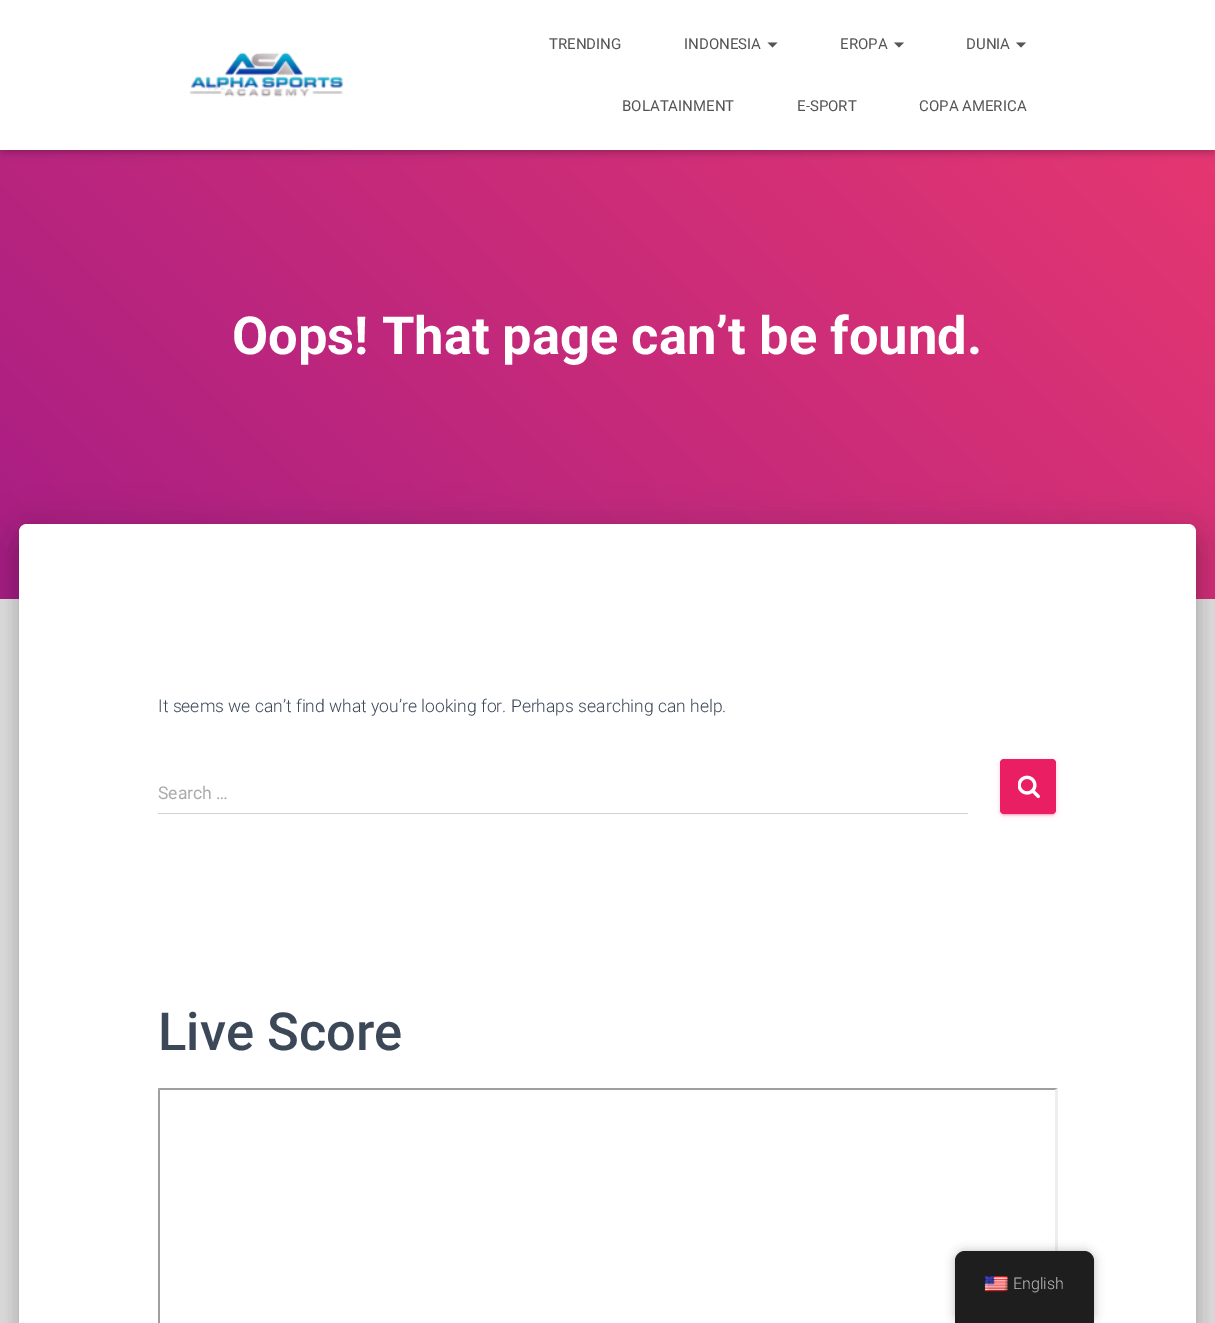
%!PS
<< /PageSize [1215 1323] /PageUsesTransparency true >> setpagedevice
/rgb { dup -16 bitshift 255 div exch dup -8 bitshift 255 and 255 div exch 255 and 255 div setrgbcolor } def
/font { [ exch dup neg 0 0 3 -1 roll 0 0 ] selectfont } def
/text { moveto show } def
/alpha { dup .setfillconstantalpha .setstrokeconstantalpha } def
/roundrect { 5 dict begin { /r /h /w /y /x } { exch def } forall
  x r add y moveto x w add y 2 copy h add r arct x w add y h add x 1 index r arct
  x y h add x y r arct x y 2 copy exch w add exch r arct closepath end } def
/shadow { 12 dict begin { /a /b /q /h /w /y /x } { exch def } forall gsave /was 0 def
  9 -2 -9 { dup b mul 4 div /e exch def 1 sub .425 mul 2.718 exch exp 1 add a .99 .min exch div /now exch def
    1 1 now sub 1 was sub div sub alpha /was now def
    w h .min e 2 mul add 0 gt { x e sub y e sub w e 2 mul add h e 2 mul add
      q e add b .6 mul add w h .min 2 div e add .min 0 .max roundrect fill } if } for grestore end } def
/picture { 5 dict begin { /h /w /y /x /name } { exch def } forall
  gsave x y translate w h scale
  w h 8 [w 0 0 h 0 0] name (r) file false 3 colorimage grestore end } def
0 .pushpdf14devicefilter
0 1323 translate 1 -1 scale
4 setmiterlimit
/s1 { /Roboto-Regular 15 font 16#555555 rgb } def
/s2 { /Roboto-Bold 52.5 font 16#FFFFFF rgb } def
/s3 { /Roboto-Light 17.5 font 16#3C4858 rgb } def
/s4 { /Roboto-Regular 17.5 font 16#AAAAAA rgb } def
/s5 { /Roboto-Medium 52.5 font 16#3C4858 rgb } def
/s6 { /Roboto-Light 16 font 16#BDBDBD rgb } def
16#E5E5E5 rgb
0 0 1215 1323 rectfill
gsave 0 150 moveto 1215 150 lineto 1215 599 lineto 0 599 lineto closepath clip newpath
<< /ShadingType 2 /ColorSpace /DeviceRGB /Coords [154 753 1061 -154] /Extend [true true] /Function << /FunctionType 2 /Domain [0 1] /C0 [0.659 0.114 0.518] /C1 [0.918 0.224 0.435] /N 1 >> >> shfill grestore
16#000000 rgb
3 8 1210 145 0 3 0.1 shadow
0 1 1215 150 0 6 0.12 shadow
8 9 1200 135 0 6 0.42 shadow
16#FFFFFF rgb
0 0 1215 150 rectfill
(pic1.raw) 190 52 154 45 picture
s1
(TRENDING) 549 49 text
(INDONESIA) 684 49 text
767.5 42.5 moveto 777.5 42.5 lineto 772.5 47.5 lineto closepath fill
(EROPA) 840 49 text
894 42.5 moveto 904 42.5 lineto 899 47.5 lineto closepath fill
(DUNIA) 966 49 text
1016 42.5 moveto 1026 42.5 lineto 1021 47.5 lineto closepath fill
(BOLATAINMENT) 622 111 text
(E-SPORT) 797 111 text
(COPA AMERICA) 919 111 text
s2
(Oops! That page can’t be found.) 232 354 text
16#000000 rgb
25 540 1165 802 1 6 0.2 shadow
13 525 1190 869 14 19 0.12 shadow
16 541 1183 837 10 15 0.14 shadow
16#FFFFFF rgb
27 524 moveto 1188 524 lineto 1192.5 524 1196 527.5 1196 532 curveto 1196 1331 lineto 19 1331 lineto 19 532 lineto 19 527.5 22.5 524 27 524 curveto closepath fill
s3
(It seems we can’t find what you’re looking for. Perhaps searching can help.) 158 712 text
s4
(Search …) 158 799 text
16#D2D2D2 rgb
158 813 810 1 rectfill
16#E91E63 rgb
1000 760 56 55 4 3 0.12 shadow
1003 765 51 50 1 0.5 0.2 shadow
1000 761 56 55 4 1 0.14 shadow
1000 759 56 55 4 roundrect fill
(pic2.raw) 1018 775 22 24 picture
s5
(Live Score) 158 1050 text
16#9F9F9F rgb
158 1088 moveto 1058 1088 lineto 1055 1090 lineto 160 1090 lineto closepath fill
158 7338 moveto 158 1088 lineto 160 1090 lineto 160 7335 lineto closepath fill
16#EEEEEE rgb
1058 1088 moveto 1058 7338 lineto 1055 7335 lineto 1055 1090 lineto closepath fill
16#000000 rgb
955 1251 139 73 10 5 0.25 shadow
16#1E1E1E rgb
965 1251 moveto 1084 1251 lineto 1089.5 1251 1094 1255.5 1094 1261 curveto 1094 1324 lineto 955 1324 lineto 955 1261 lineto 955 1255.5 959.5 1251 965 1251 curveto closepath fill
(pic3.raw) 984 1276 24 16 picture
s6
(English) 1013 1289 text
.poppdf14devicefilter showpage
